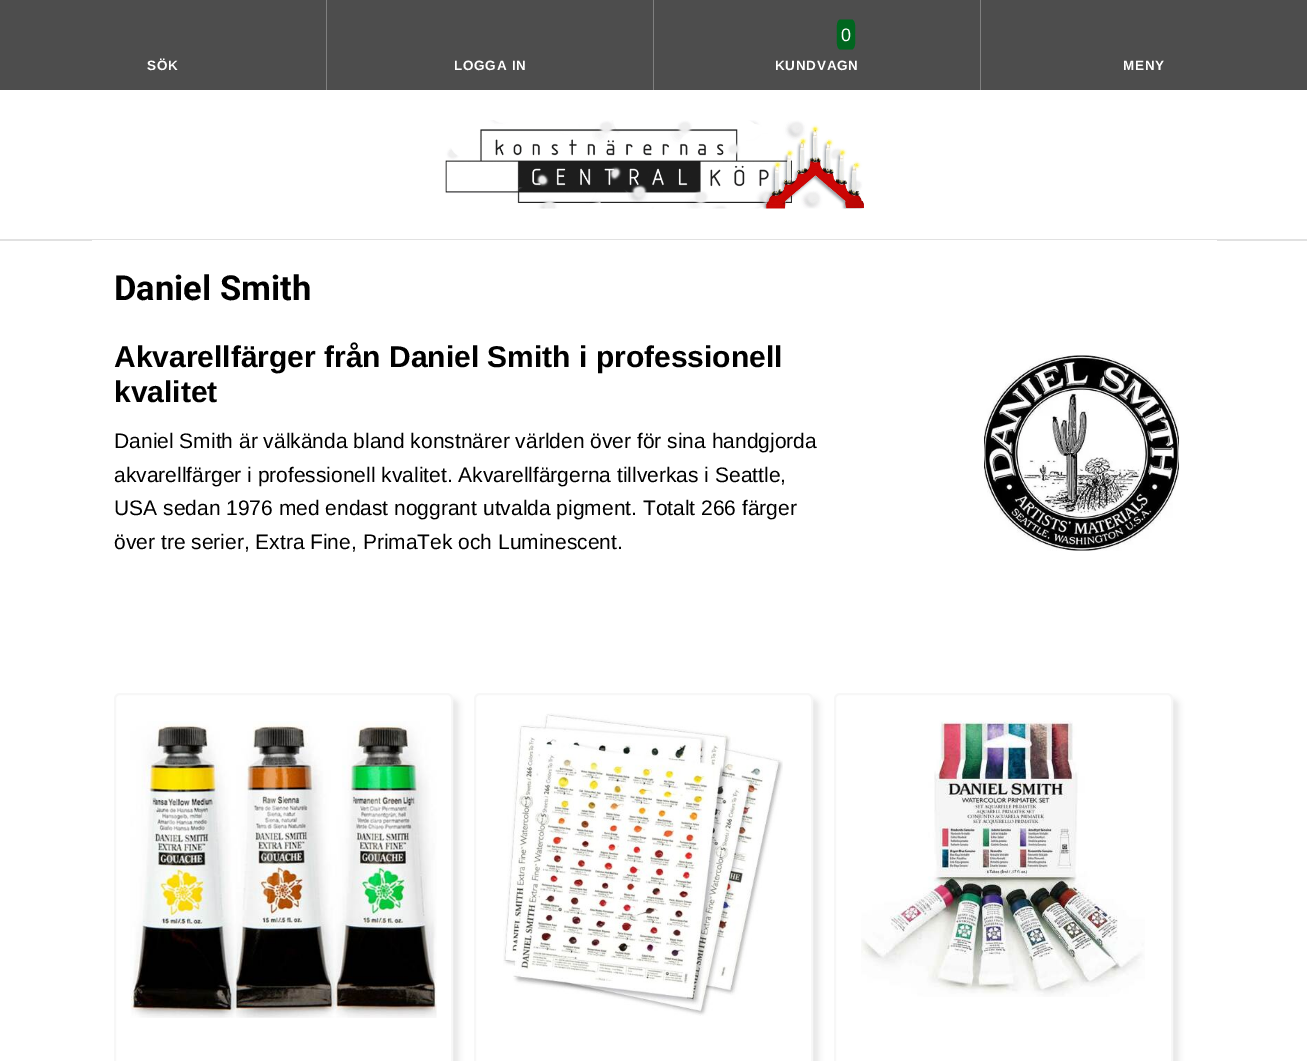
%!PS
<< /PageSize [1307 1061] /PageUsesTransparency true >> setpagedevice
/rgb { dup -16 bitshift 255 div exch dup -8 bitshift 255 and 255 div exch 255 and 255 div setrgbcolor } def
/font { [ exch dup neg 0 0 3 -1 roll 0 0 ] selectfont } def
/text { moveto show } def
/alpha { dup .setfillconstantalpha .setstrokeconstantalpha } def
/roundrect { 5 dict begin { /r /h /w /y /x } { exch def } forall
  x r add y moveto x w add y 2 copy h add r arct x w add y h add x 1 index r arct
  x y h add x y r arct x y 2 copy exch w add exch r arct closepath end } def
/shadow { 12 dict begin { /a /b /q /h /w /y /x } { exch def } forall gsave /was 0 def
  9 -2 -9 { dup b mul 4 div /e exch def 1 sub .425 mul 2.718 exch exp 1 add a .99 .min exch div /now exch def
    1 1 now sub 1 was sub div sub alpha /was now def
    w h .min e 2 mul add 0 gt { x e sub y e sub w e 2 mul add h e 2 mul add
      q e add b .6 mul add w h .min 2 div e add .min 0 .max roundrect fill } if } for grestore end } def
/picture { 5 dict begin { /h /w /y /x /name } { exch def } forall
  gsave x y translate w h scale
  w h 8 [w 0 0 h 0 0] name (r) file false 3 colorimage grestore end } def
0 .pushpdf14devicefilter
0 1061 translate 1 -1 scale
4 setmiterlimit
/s1 { /LiberationSans-Regular 18 font 16#FFFFFF rgb } def
/s2 { /Roboto-Bold 34.5 font 16#000000 rgb } def
/s3 { /LiberationSans-Bold 30 font 16#000000 rgb } def
/s4 { /LiberationSans-Regular 21 font 16#000000 rgb } def
16#FFFFFF rgb
0 0 1307 1061 rectfill
16#E1E1E1 rgb
0 239 1307 2 rectfill
16#4D4D4D rgb
0 0 326 90 rectfill
16#808080 rgb
326 0 1 90 rectfill
/LiberationSans-Bold 13.5 font
16#FFFFFF rgb
147 70 moveto 0.75 0 (SÖK) ashow
16#4D4D4D rgb
327 0 326 90 rectfill
16#808080 rgb
653 0 1 90 rectfill
16#FFFFFF rgb
454 70 moveto 0.75 0 (LOGGA IN) ashow
16#4D4D4D rgb
654 0 326 90 rectfill
16#808080 rgb
980 0 1 90 rectfill
16#00661F rgb
840.5 19.5 moveto 852 19.5 lineto 856.5 21 855 31.5 855 34.5 curveto 855 37.5 856.5 48 852 49.5 curveto 840.5 49.5 lineto 835.5 49.5 837 37 837 34.5 curveto 837 32 835.5 19.5 840.5 19.5 curveto closepath fill
s1
(0) 841 41 text
/LiberationSans-Bold 13.5 font
775 70 moveto 0.75 0 (KUNDVAGN) ashow
16#4D4D4D rgb
981 0 326 90 rectfill
16#FFFFFF rgb
1123 70 moveto 0.75 0 (MENY) ashow
(pic1.raw) 445 120 419 89 picture
92 240 1125 1 rectfill
s2
(Daniel Smith) 114 300 text
s3
(Akvarellfärger från Daniel Smith i professionell) 114 367 text
(kvalitet) 114 402 text
s4
(Daniel Smith är välkända bland konstnärer världen över för sina handgjorda) 114 448 text
(akvarellfärger i professionell kvalitet. Akvarellfärgerna tillverkas i Seattle,) 114 482 text
(USA sedan 1976 med endast noggrant utvalda pigment. Totalt 266 färger) 114 515 text
(över tre serier, Extra Fine, PrimaTek och Luminescent.) 114 549 text
(pic2.raw) 984 354 195 197 picture
gsave
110 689 moveto 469 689 lineto 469 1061 lineto 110 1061 lineto closepath 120 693 moveto 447 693 lineto 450.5 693 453 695.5 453 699 curveto 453 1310 lineto 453 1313.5 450.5 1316 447 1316 curveto 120 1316 lineto 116.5 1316 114 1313.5 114 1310 curveto 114 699 lineto 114 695.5 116.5 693 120 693 curveto closepath eoclip newpath
16#C5C5C5 rgb
120 699 339 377 6 3 0.4 shadow
grestore
16#F7F7F7 rgb
2 setlinewidth
115 694 337 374 5 roundrect stroke
(pic3.raw) 130 721 307 297 picture
gsave
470 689 moveto 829 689 lineto 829 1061 lineto 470 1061 lineto closepath 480 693 moveto 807 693 lineto 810.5 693 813 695.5 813 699 curveto 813 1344 lineto 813 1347.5 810.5 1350 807 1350 curveto 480 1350 lineto 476.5 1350 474 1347.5 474 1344 curveto 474 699 lineto 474 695.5 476.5 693 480 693 curveto closepath eoclip newpath
16#C5C5C5 rgb
480 699 339 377 6 3 0.4 shadow
grestore
475 694 337 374 5 roundrect stroke
(pic4.raw) 503 713 280 303 picture
gsave
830 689 moveto 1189 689 lineto 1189 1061 lineto 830 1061 lineto closepath 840 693 moveto 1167 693 lineto 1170.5 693 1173 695.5 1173 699 curveto 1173 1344 lineto 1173 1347.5 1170.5 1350 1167 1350 curveto 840 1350 lineto 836.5 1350 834 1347.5 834 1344 curveto 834 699 lineto 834 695.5 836.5 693 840 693 curveto closepath eoclip newpath
16#C5C5C5 rgb
840 699 339 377 6 3 0.4 shadow
grestore
835 694 337 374 5 roundrect stroke
(pic5.raw) 861 720 284 277 picture
.poppdf14devicefilter showpage
